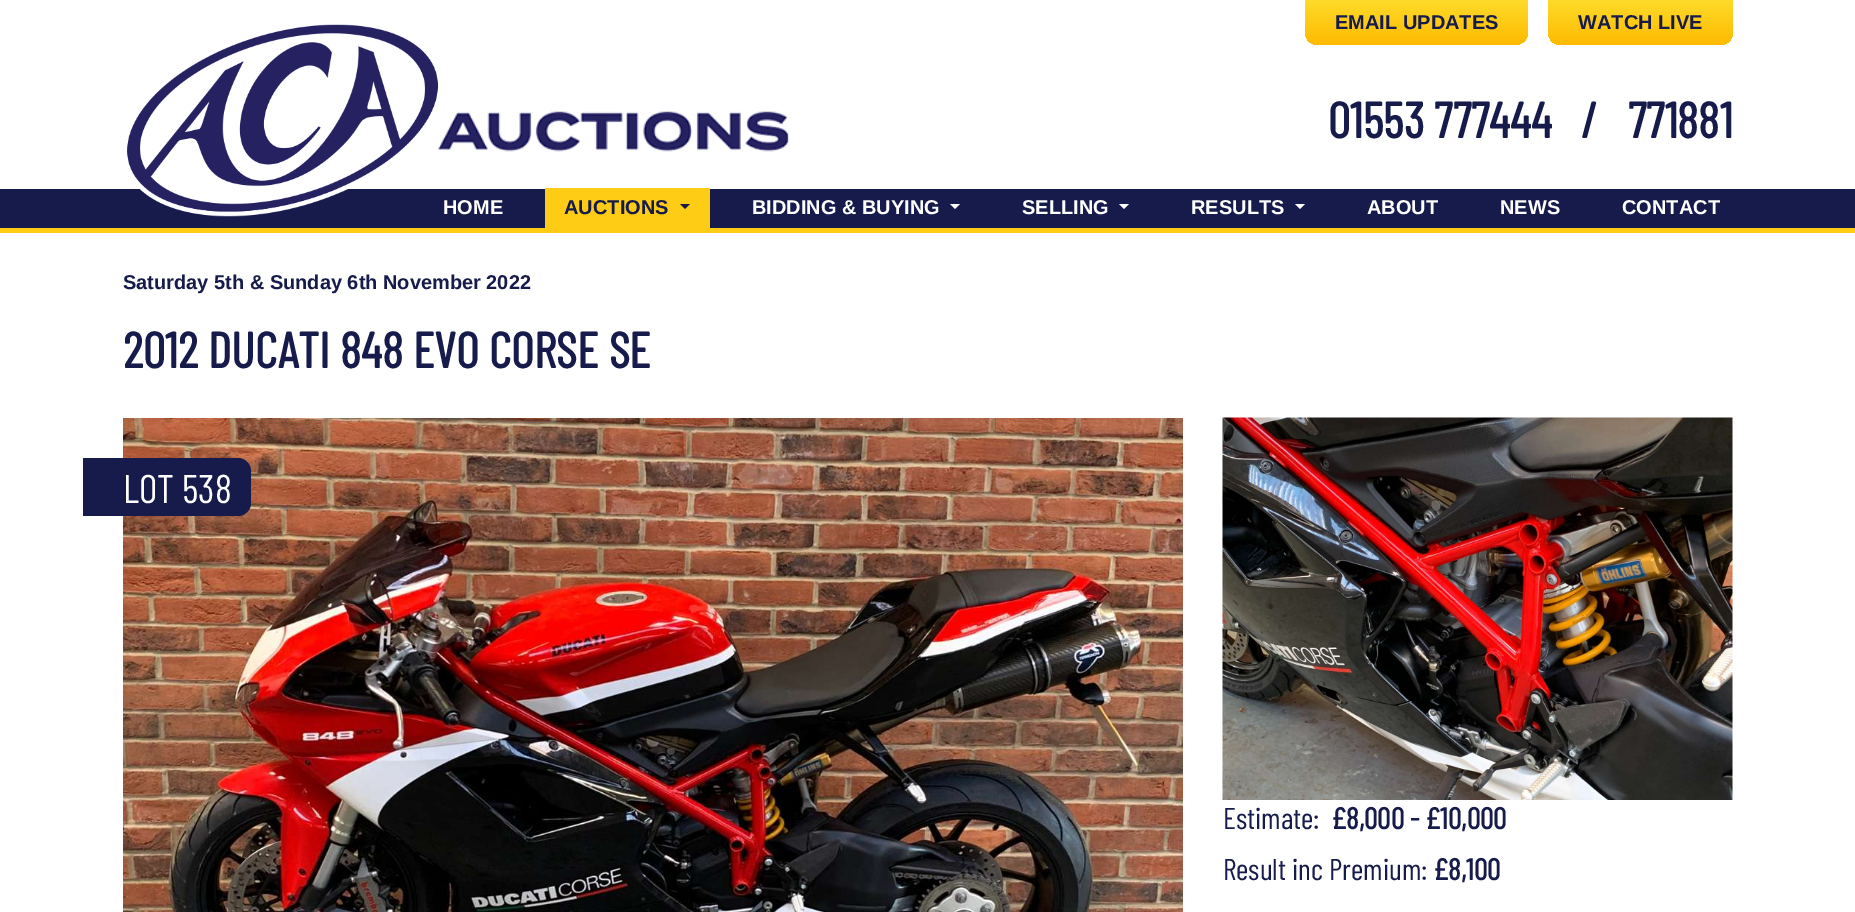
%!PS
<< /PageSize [1855 912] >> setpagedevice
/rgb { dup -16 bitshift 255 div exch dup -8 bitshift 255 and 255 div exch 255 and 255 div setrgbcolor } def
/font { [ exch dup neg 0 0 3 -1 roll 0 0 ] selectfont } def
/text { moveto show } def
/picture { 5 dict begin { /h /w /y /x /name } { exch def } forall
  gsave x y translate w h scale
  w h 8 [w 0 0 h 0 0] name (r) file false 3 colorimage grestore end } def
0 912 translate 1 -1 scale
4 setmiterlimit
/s1 { /LiberationSans-Bold 20 font 16#161B4B rgb } def
/s2 { /BarlowCondensed-Bold 50 font 16#161B4B rgb } def
/s3 { /LiberationSans-Bold 20 font 16#FFFFFF rgb } def
/s4 { /BarlowCondensed-Regular 40 font 16#FFFFFF rgb } def
/s5 { /BarlowCondensed-Regular 30 font 16#161B4B rgb } def
/s6 { /BarlowCondensed-Bold 30 font 16#161B4B rgb } def
16#FFFFFF rgb
0 0 1855 912 rectfill
gsave 1305 0 moveto 1528 0 lineto 1528 32 lineto 1528 39 1522 45 1515 45 curveto 1318 45 lineto 1311 45 1305 39 1305 32 curveto closepath clip newpath
<< /ShadingType 2 /ColorSpace /DeviceRGB /Coords [1416 0 1416 45] /Extend [true true] /Function << /FunctionType 2 /Domain [0 1] /C0 [0.992 0.859 0.165] /C1 [1 0.729 0] /N 1 >> >> shfill grestore
s1
(EMAIL UPDATES) 1335 29 text
gsave 1548 0 moveto 1733 0 lineto 1733 32 lineto 1733 39 1727 45 1720 45 curveto 1561 45 lineto 1554 45 1548 39 1548 32 curveto closepath clip newpath
<< /ShadingType 2 /ColorSpace /DeviceRGB /Coords [1640 0 1640 45] /Extend [true true] /Function << /FunctionType 2 /Domain [0 1] /C0 [0.992 0.859 0.165] /C1 [1 0.729 0] /N 1 >> >> shfill grestore
(WATCH LIVE) 1578 29 text
0 189 1855 39 rectfill
(pic1.raw) 127 24 312 193 picture
(pic2.raw) 437 111 352 41 picture
s2
(01553 777444) 1328 138 text
(/) 1581 138 text
(771881) 1628 138 text
s3
(HOME) 443 214 text
16#FECB15 rgb
545 188 165 40 rectfill
s1
(AUCTIONS) 564 214 text
680 204 moveto 690 204 lineto 685 209 lineto closepath fill
s3
(BIDDING & BUYING) 752 214 text
950 204 moveto 960 204 lineto 955 209 lineto closepath fill
(SELLING) 1022 214 text
1119 204 moveto 1129 204 lineto 1124 209 lineto closepath fill
(RESULTS) 1191 214 text
1295 204 moveto 1305 204 lineto 1300 209 lineto closepath fill
(ABOUT) 1367 214 text
(NEWS) 1500 214 text
(CONTACT) 1622 214 text
16#FECB15 rgb
0 228 1855 5 rectfill
s1
(Saturday 5th & Sunday 6th November 2022) 123 289 text
s2
(2012 DUCATI 848 EVO CORSE SE) 123 368 text
(pic3.raw) 123 418 1060 494 picture
83 458 moveto 238 458 lineto 245 458 251 464 251 471 curveto 251 503 lineto 251 510 245 516 238 516 curveto 83 516 lineto closepath fill
s4
(LOT 538) 123 503 text
(pic4.raw) 1222 417 511 383 picture
s5
(Estimate:) 1223 829 text
s6
(£8,000 - £10,000) 1331 829 text
s5
(Result inc Premium:) 1223 880 text
s6
(£8,100) 1433 880 text
showpage
